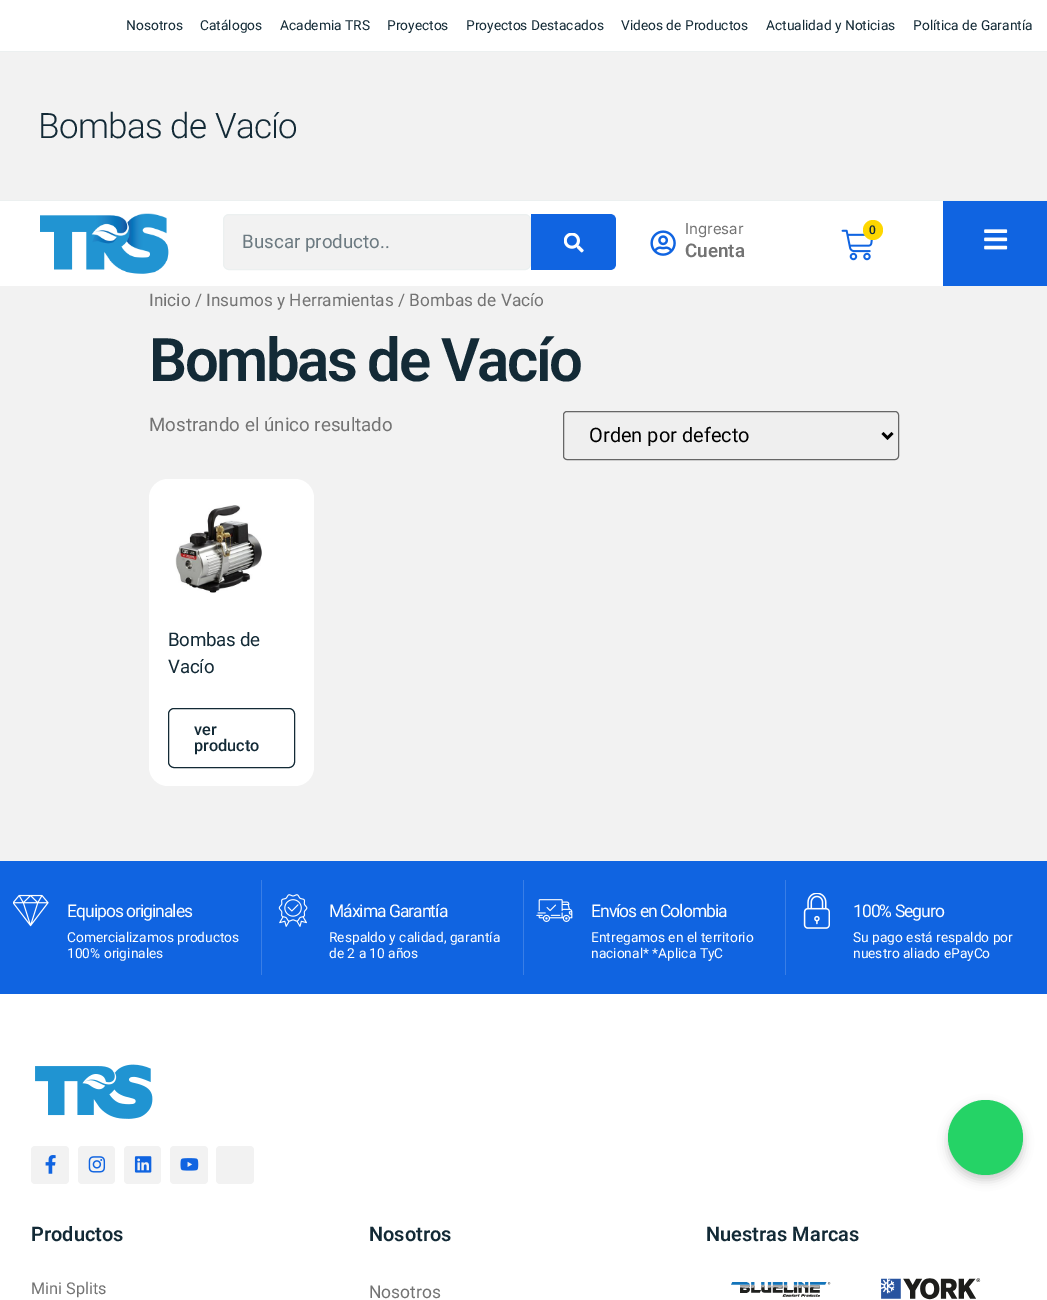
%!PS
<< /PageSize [1047 1300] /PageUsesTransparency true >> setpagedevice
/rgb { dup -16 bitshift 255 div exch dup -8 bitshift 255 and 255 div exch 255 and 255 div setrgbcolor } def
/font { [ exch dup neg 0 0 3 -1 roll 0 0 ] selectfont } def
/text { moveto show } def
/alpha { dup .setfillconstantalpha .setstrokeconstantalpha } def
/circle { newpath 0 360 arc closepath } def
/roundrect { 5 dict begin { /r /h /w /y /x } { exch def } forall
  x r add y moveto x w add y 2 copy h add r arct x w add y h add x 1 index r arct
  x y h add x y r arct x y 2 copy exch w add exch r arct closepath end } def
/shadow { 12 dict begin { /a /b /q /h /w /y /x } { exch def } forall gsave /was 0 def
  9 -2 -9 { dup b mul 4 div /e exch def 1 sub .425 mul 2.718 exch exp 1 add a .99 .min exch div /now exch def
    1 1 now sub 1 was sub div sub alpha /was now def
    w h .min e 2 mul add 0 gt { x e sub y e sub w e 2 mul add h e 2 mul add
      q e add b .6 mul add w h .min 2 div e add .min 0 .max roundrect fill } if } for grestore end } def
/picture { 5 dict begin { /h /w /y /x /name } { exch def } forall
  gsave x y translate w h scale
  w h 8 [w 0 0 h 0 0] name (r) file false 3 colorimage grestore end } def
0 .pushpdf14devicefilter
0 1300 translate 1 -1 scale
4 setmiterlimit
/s1 { /Roboto-Regular 13.75 font 16#132A36 rgb } def
/s2 { /Roboto-Regular 18.75 font 16#6C7A81 rgb } def
/s3 { /Inter-Regular 15 font 16#737373 rgb } def
/s4 { /Roboto-SemiBold 18.75 font 16#737373 rgb } def
/s5 { /Roboto-Medium 12 font 16#132A36 rgb } def
/s6 { /Roboto-Regular 17.25 font 16#737373 rgb } def
/s7 { /Roboto-Regular 18.75 font 16#737373 rgb } def
/s8 { /Roboto-Regular 20 font 16#000000 rgb } def
/s9 { /Roboto-Medium 16.25 font 16#132A36 rgb } def
/s10 { /Roboto-Regular 13.75 font 16#FFFFFF rgb } def
/s11 { /Roboto-SemiBold 20 font 16#132A36 rgb } def
/s12 { /Roboto-Regular 16.25 font 16#737373 rgb } def
/s13 { /Roboto-Regular 17.5 font 16#737373 rgb } def
16#F2F2F2 rgb
0 0 1047 1300 rectfill
16#FFFFFF rgb
0 0 1047 51 rectfill
16#ECF0F0 rgb
0 51 1047 1 rectfill
s1
(Nosotros) 126 30 text
(Catálogos) 200 30 text
(Academia TRS) 280 30 text
(Proyectos) 387 30 text
(Proyectos Destacados) 466 30 text
(Videos de Productos) 621 30 text
(Actualidad y Noticias) 766 30 text
(Política de Garantía) 913 30 text
16#ECF0F0 rgb
0 200 1047 1 rectfill
/Roboto-Light 35 font
16#132A36 rgb
38 138 moveto -0.6 0 (Bombas de Vacío) ashow
16#FFFFFF rgb
0 201 943 85 rectfill
(pic1.raw) 40 213 129 61 picture
16#F2F2F2 rgb
223.5 214.5 307 55 5.5 roundrect gsave fill grestore
16#ECF0F0 rgb
stroke
s2
(Buscar producto..) 242 248 text
16#1064E1 rgb
531 214 moveto 610 214 lineto 613.5 214 616 216.5 616 220 curveto 616 264 lineto 616 267.5 613.5 270 610 270 curveto 531 270 lineto closepath fill
(pic2.raw) 564 233 20 20 picture
(pic3.raw) 650 230 26 26 picture
s3
(Ingresar) 685 234 text
s4
(Cuenta) 685 257 text
(pic4.raw) 841 229 32 32 picture
16#FED700 rgb
873 230 10 circle fill
s5
(0) 869 234 text
16#1064E1 rgb
943 201 104 85 rectfill
(pic5.raw) 984 229 24 21 picture
s6
(Inicio / Insumos y Herramientas / Bombas de Vacío) 149 306 text
/Roboto-SemiBold 60 font
16#132A36 rgb
149 381 moveto -2.5 0 (Bombas de Vacío) ashow
s7
(Mostrando el único resultado) 149 431 text
16#EFEFEF rgb
563.5 411.5 335 48 3.5 roundrect gsave fill grestore
16#666666 rgb
stroke
16#000000 rgb
2.5 setlinewidth
882.5 433 moveto 887.5 438 lineto 892.5 433 lineto stroke
s8
(Orden por defecto) 589 442 text
16#FFFFFF rgb
149 479 165 307 19 roundrect fill
(pic6.raw) 175 505 87 88 picture
/Roboto-Regular 18.75 font
16#132A36 rgb
168 646 moveto -0.25 0 (Bombas de) ashow
168 673 moveto -0.25 0 (Vacío) ashow
1 setlinewidth
168.5 708.5 126 59 5.5 roundrect stroke
s9
(ver) 194 735 text
(producto) 194 751 text
16#1064E1 rgb
0 861 1047 133 rectfill
16#397EE6 rgb
261 880 1 95 rectfill
(pic7.raw) 13 894 36 33 picture
/Roboto-Regular 17.5 font
16#FFFFFF rgb
67 917 moveto -1 0 (Equipos originales) ashow
s10
(Comercializamos productos) 67 942 text
(100% originales) 67 958 text
16#397EE6 rgb
523 880 1 95 rectfill
(pic8.raw) 278 894 30 33 picture
/Roboto-Regular 17.5 font
16#FFFFFF rgb
329 917 moveto -1 0 (Máxima Garantía) ashow
s10
(Respaldo y calidad, garantía) 329 942 text
(de 2 a 10 años) 329 958 text
16#397EE6 rgb
785 880 1 95 rectfill
(pic9.raw) 536 899 37 23 picture
/Roboto-Regular 17.5 font
16#FFFFFF rgb
591 917 moveto -1 0 (Envíos en Colombia) ashow
s10
(Entregamos en el territorio) 591 942 text
(nacional* *Aplica TyC) 591 958 text
(pic10.raw) 803 893 27 36 picture
/Roboto-Regular 17.5 font
853 917 moveto -1 0 (100% Seguro) ashow
s10
(Su pago está respaldo por) 853 942 text
(nuestro aliado ePayCo) 853 958 text
0 994 1047 306 rectfill
(pic11.raw) 35 1064 118 55 picture
16#F2F2F2 rgb
31 1146 38 38 4 roundrect fill
(pic12.raw) 45 1155 11 19 picture
78 1146 37 38 4 roundrect fill
(pic13.raw) 88 1156 18 17 picture
124 1146 37 38 4 roundrect fill
(pic14.raw) 134 1156 18 17 picture
170 1146 38 38 4 roundrect fill
(pic15.raw) 180 1158 19 13 picture
216 1146 38 38 4 roundrect fill
s11
(Productos) 31 1241 text
s12
(Mini Splits) 31 1294 text
s11
(Nosotros) 369 1241 text
s13
(Nosotros) 369 1298 text
s11
(Nuestras Marcas) 706 1241 text
(pic16.raw) 731 1282 100 15 picture
(pic17.raw) 881 1278 100 22 picture
16#000000 rgb
948 1105 75 75 37.5 5 0.2 shadow
16#25D366 rgb
985.5 1137.5 37.5 circle fill
.poppdf14devicefilter showpage
